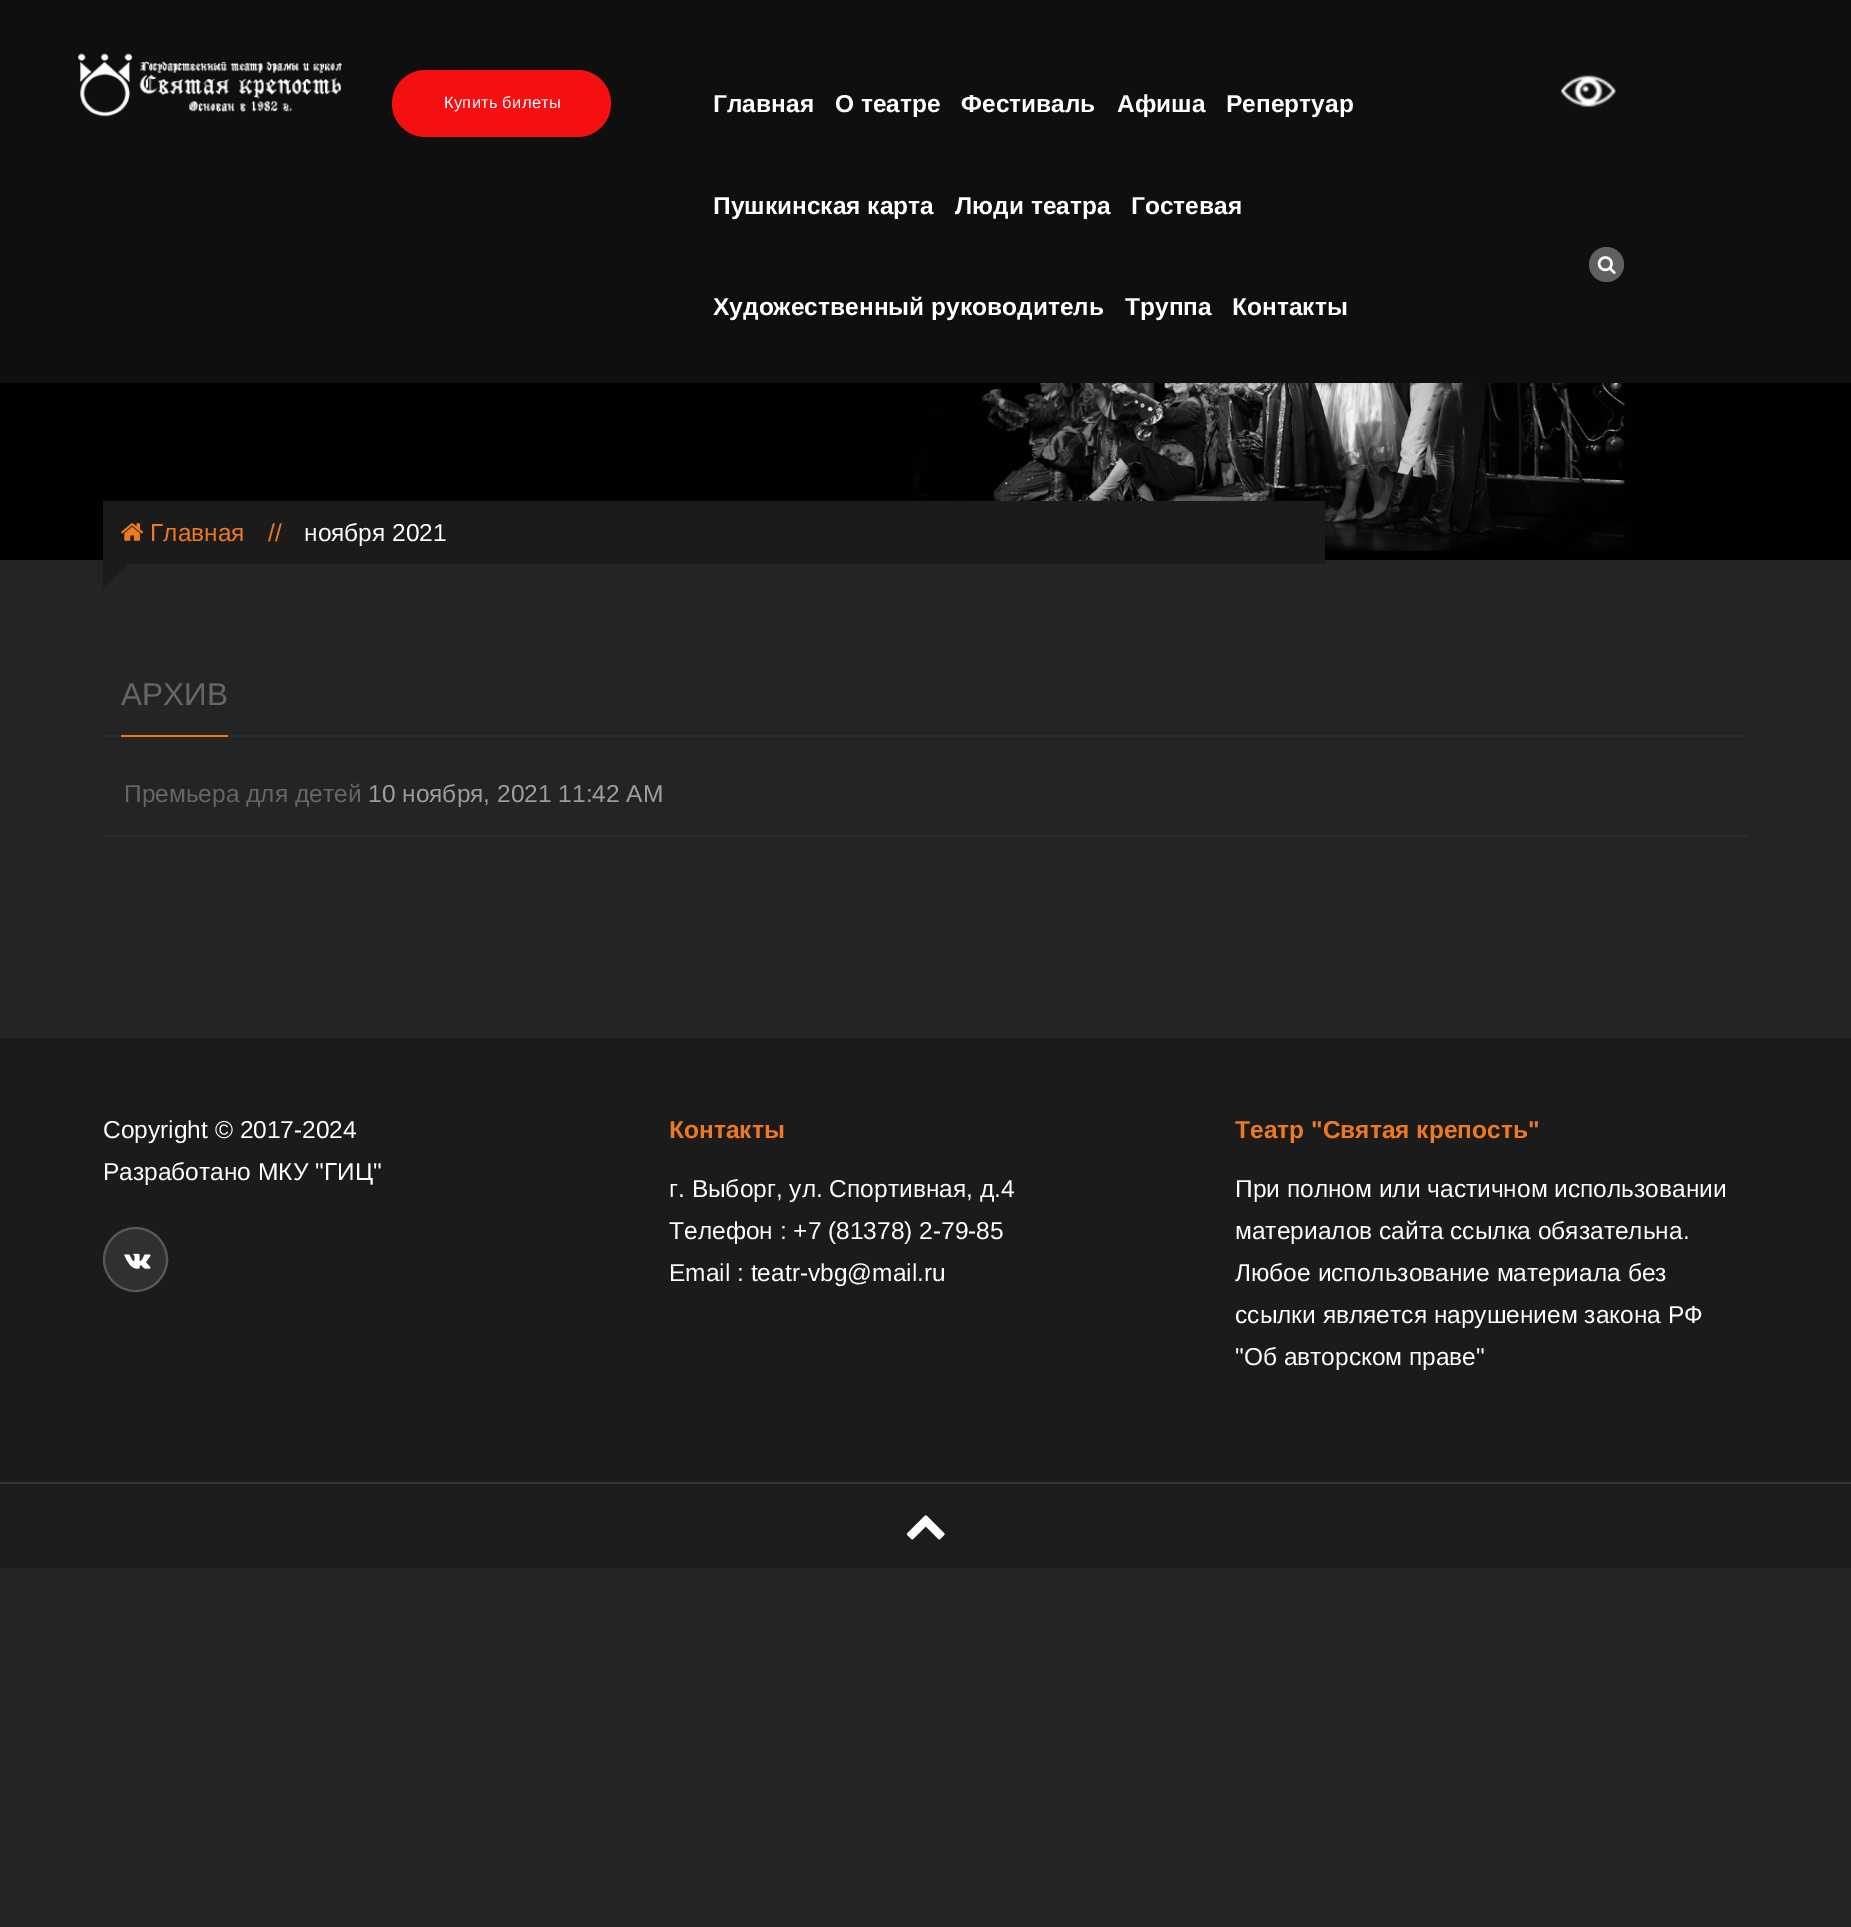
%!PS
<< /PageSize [1851 1927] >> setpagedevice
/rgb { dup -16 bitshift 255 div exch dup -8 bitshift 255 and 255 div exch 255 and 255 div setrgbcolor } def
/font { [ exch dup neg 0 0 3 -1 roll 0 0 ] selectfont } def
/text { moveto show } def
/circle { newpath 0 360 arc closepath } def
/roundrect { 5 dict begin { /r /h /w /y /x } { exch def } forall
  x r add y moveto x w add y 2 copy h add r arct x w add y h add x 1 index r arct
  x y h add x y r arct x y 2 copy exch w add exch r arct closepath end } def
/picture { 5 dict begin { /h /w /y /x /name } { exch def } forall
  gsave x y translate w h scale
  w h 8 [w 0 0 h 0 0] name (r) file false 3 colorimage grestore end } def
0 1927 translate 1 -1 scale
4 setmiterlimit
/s1 { /LiberationSans-Bold 24.5 font 16#FFFFFF rgb } def
/s2 { /LiberationSans-Regular 24.5 font 16#EF791F rgb } def
/s3 { /LiberationSans-Regular 24.5 font 16#FFFFFF rgb } def
/s4 { /LiberationSans-Regular 31.5 font 16#666666 rgb } def
/s5 { /LiberationSans-Regular 24.5 font 16#666666 rgb } def
/s6 { /LiberationSans-Regular 24.5 font 16#9E9E9E rgb } def
/s7 { /LiberationSans-Bold 24.5 font 16#EF791F rgb } def
16#242424 rgb
0 0 1851 1927 rectfill
16#0F0F0F rgb
0 0 1851 383 rectfill
(pic1.raw) 78 53 264 64 picture
16#F41010 rgb
392 70 219 67 33.5 roundrect fill
/LiberationSans-Regular 16.5 font
16#FFFFFF rgb
444 108 moveto 0.25 0 (Купить билеты) ashow
s1
(Главная) 713 112 text
(О театре) 835 112 text
(Фестиваль) 961 112 text
(Афиша) 1117 112 text
(Репертуар) 1226 112 text
(Пушкинская карта) 713 214 text
(Люди театра) 955 214 text
(Гостевая) 1131 214 text
(Художественный руководитель) 713 315 text
(Труппа) 1125 315 text
(Контакты) 1232 315 text
(pic2.raw) 1561 75 55 32 picture
16#606060 rgb
1606.5 264.5 17.5 circle fill
(pic3.raw) 1597 256 19 18 picture
(pic4.raw) 0 383 1851 177 picture
16#1B1B1B rgb
103 501 1222 63 rectfill
(pic5.raw) 121 523 23 18 picture
s2
(Главная) 150 541 text
(//) 268 541 text
s3
(ноября 2021) 304 541 text
16#1B1B1B rgb
103 588 moveto 103 539 lineto 128 564 lineto closepath fill
16#2B2B2B rgb
103 735 1645 2 rectfill
s4
(АРХИВ) 121 705 text
16#EF791F rgb
121 735 107 2 rectfill
16#2B2B2B rgb
103 835 1645 2 rectfill
s5
(Премьера для детей) 124 802 text
s6
(10 ноября, 2021 11:42 AM) 368 802 text
16#1B1B1B rgb
0 1038 1851 444 rectfill
s3
(Copyright © 2017-2024) 103 1138 text
(Разработано МКУ "ГИЦ") 103 1180 text
16#303030 rgb
135.5 1259.5 31.5 circle gsave fill grestore
16#595959 rgb
2 setlinewidth
stroke
(pic6.raw) 124 1253 27 16 picture
s7
(Контакты) 669 1138 text
s3
(г. Выборг, ул. Спортивная, д.4) 669 1197 text
(Телефон : +7 \(81378\) 2-79-85) 669 1239 text
(Email : teatr-vbg@mail.ru) 669 1281 text
s7
(Театр "Святая крепость") 1235 1138 text
s3
(При полном или частичном использовании) 1235 1197 text
(материалов сайта ссылка обязательна.) 1235 1239 text
(Любое использование материала без) 1235 1281 text
(ссылки является нарушением закона РФ) 1235 1323 text
("Об авторском праве") 1235 1365 text
16#1C1C1C rgb
0 1484 1851 84 rectfill
16#353535 rgb
0 1482 1851 2 rectfill
(pic7.raw) 906 1515 39 25 picture
showpage
